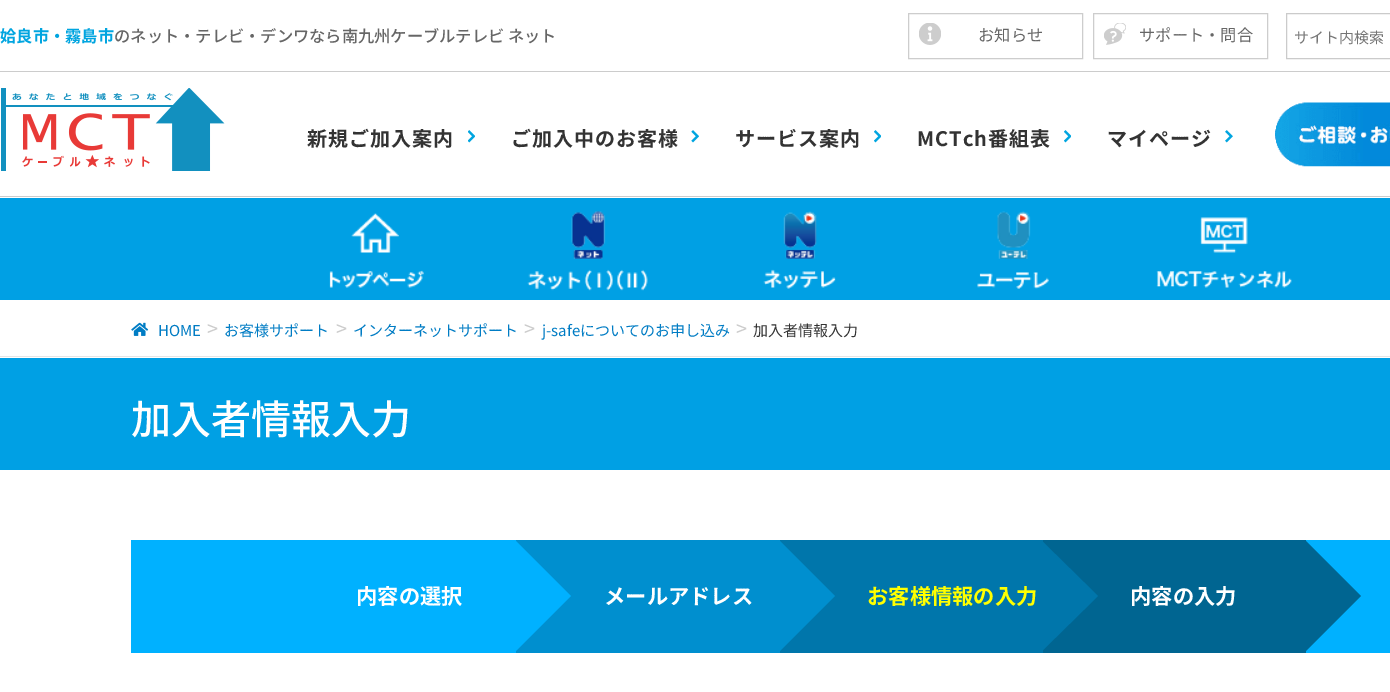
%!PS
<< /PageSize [1390 692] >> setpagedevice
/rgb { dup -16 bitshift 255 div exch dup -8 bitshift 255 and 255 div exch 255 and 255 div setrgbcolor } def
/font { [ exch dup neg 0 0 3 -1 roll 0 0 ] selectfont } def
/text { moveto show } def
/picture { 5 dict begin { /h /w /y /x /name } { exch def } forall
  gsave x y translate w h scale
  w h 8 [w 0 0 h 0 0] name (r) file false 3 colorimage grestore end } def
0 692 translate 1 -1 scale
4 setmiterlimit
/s1 { /NotoSansJP-Bold 16.25 font 16#00A5E0 rgb } def
/s2 { /NotoSansJP-Medium 16.25 font 16#666666 rgb } def
/s3 { /NotoSansJP-Regular 16.25 font 16#666666 rgb } def
/s4 { /NotoSansJP-Regular 15 font 16#757575 rgb } def
/s5 { /NotoSansJP-Regular 15 font 16#007CC4 rgb } def
/s6 { /NotoSansJP-Regular 20 font 16#CCCCCC rgb } def
/s7 { /NotoSansJP-Regular 15 font 16#333333 rgb } def
/s8 { /NotoSansJP-Medium 40 font 16#FFFFFF rgb } def
/s9 { /NotoSansJP-Bold 21.25 font 16#FFFFFF rgb } def
/s10 { /NotoSansJP-Bold 21.25 font 16#FFFF00 rgb } def
16#FFFFFF rgb
0 0 1390 692 rectfill
16#CCCCCC rgb
0 71 1390 1 rectfill
s1
(姶良市・霧島市) 0 42 text
s2
(のネット・テレビ・デンワなら南九州ケーブルテレビ ネット) 114 42 text
16#CDCDCD rgb
908.5 13.5 174 45 rectstroke
(pic1.raw) 919 23 22 22 picture
s3
(お知らせ) 978 41 text
16#CDCDCD rgb
1093.5 13.5 174 45 rectstroke
(pic2.raw) 1104 23 22 22 picture
s3
(サポート・問合) 1139 41 text
16#CBCBCB rgb
1286.5 13.5 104 45 rectstroke
s4
(サイト内検索) 1294 43 text
16#CCCCCC rgb
0 196 1390 1 rectfill
(pic3.raw) 1 88 224 83 picture
/NotoSansJP-Bold 20 font
16#333333 rgb
307 146 moveto 1 0 (新規ご加入案内) ashow
(pic4.raw) 468 130 7 13 picture
511 146 moveto 1 0 (ご加入中のお客様) ashow
(pic5.raw) 691 130 8 13 picture
735 146 moveto 1 0 (サービス案内) ashow
(pic6.raw) 874 130 7 13 picture
917 146 moveto 1 0 (MCTch番組表) ashow
(pic6.raw) 1064 130 7 13 picture
1107 146 moveto 1 0 (マイページ) ashow
(pic7.raw) 1225 130 8 13 picture
(pic8.raw) 1275 102 115 65 picture
16#00A0E4 rgb
0 198 1390 102 rectfill
(pic9.raw) 329 213 95 75 picture
(pic10.raw) 527 211 121 80 picture
(pic11.raw) 763 211 73 78 picture
(pic12.raw) 977 211 72 78 picture
(pic13.raw) 1156 217 136 71 picture
16#E5E5E5 rgb
0 356 1390 1 rectfill
(pic14.raw) 131 322 18 14 picture
s5
(HOME) 158 336 text
s6
(>) 207 336 text
s5
(お客様サポート) 224 336 text
s6
(>) 336 336 text
s5
(インターネットサポート) 353 336 text
s6
(>) 524 336 text
s5
(j-safeについてのお申し込み) 542 336 text
s6
(>) 736 336 text
s7
(加入者情報入力) 753 336 text
16#00A0E4 rgb
0 358 1390 112 rectfill
s8
(加入者情報入力) 131 434 text
16#00B1FF rgb
131 540 385 113 rectfill
16#008FCF rgb
516 540 264 113 rectfill
16#00B1FF rgb
515 652 moveto 515 540 lineto 571 596 lineto closepath fill
16#0076AB rgb
780 540 263 113 rectfill
16#008FCF rgb
779 652 moveto 779 540 lineto 835 596 lineto closepath fill
16#006591 rgb
1043 540 263 113 rectfill
16#0076AB rgb
1041 652 moveto 1041 540 lineto 1098 596 lineto closepath fill
16#00B1FF rgb
1306 540 84 113 rectfill
16#006591 rgb
1305 652 moveto 1305 540 lineto 1361 596 lineto closepath fill
s9
(内容の選択) 356 604 text
(メールアドレス) 604 604 text
s10
(お客様情報の入力) 867 604 text
s9
(内容の入力) 1130 604 text
showpage
